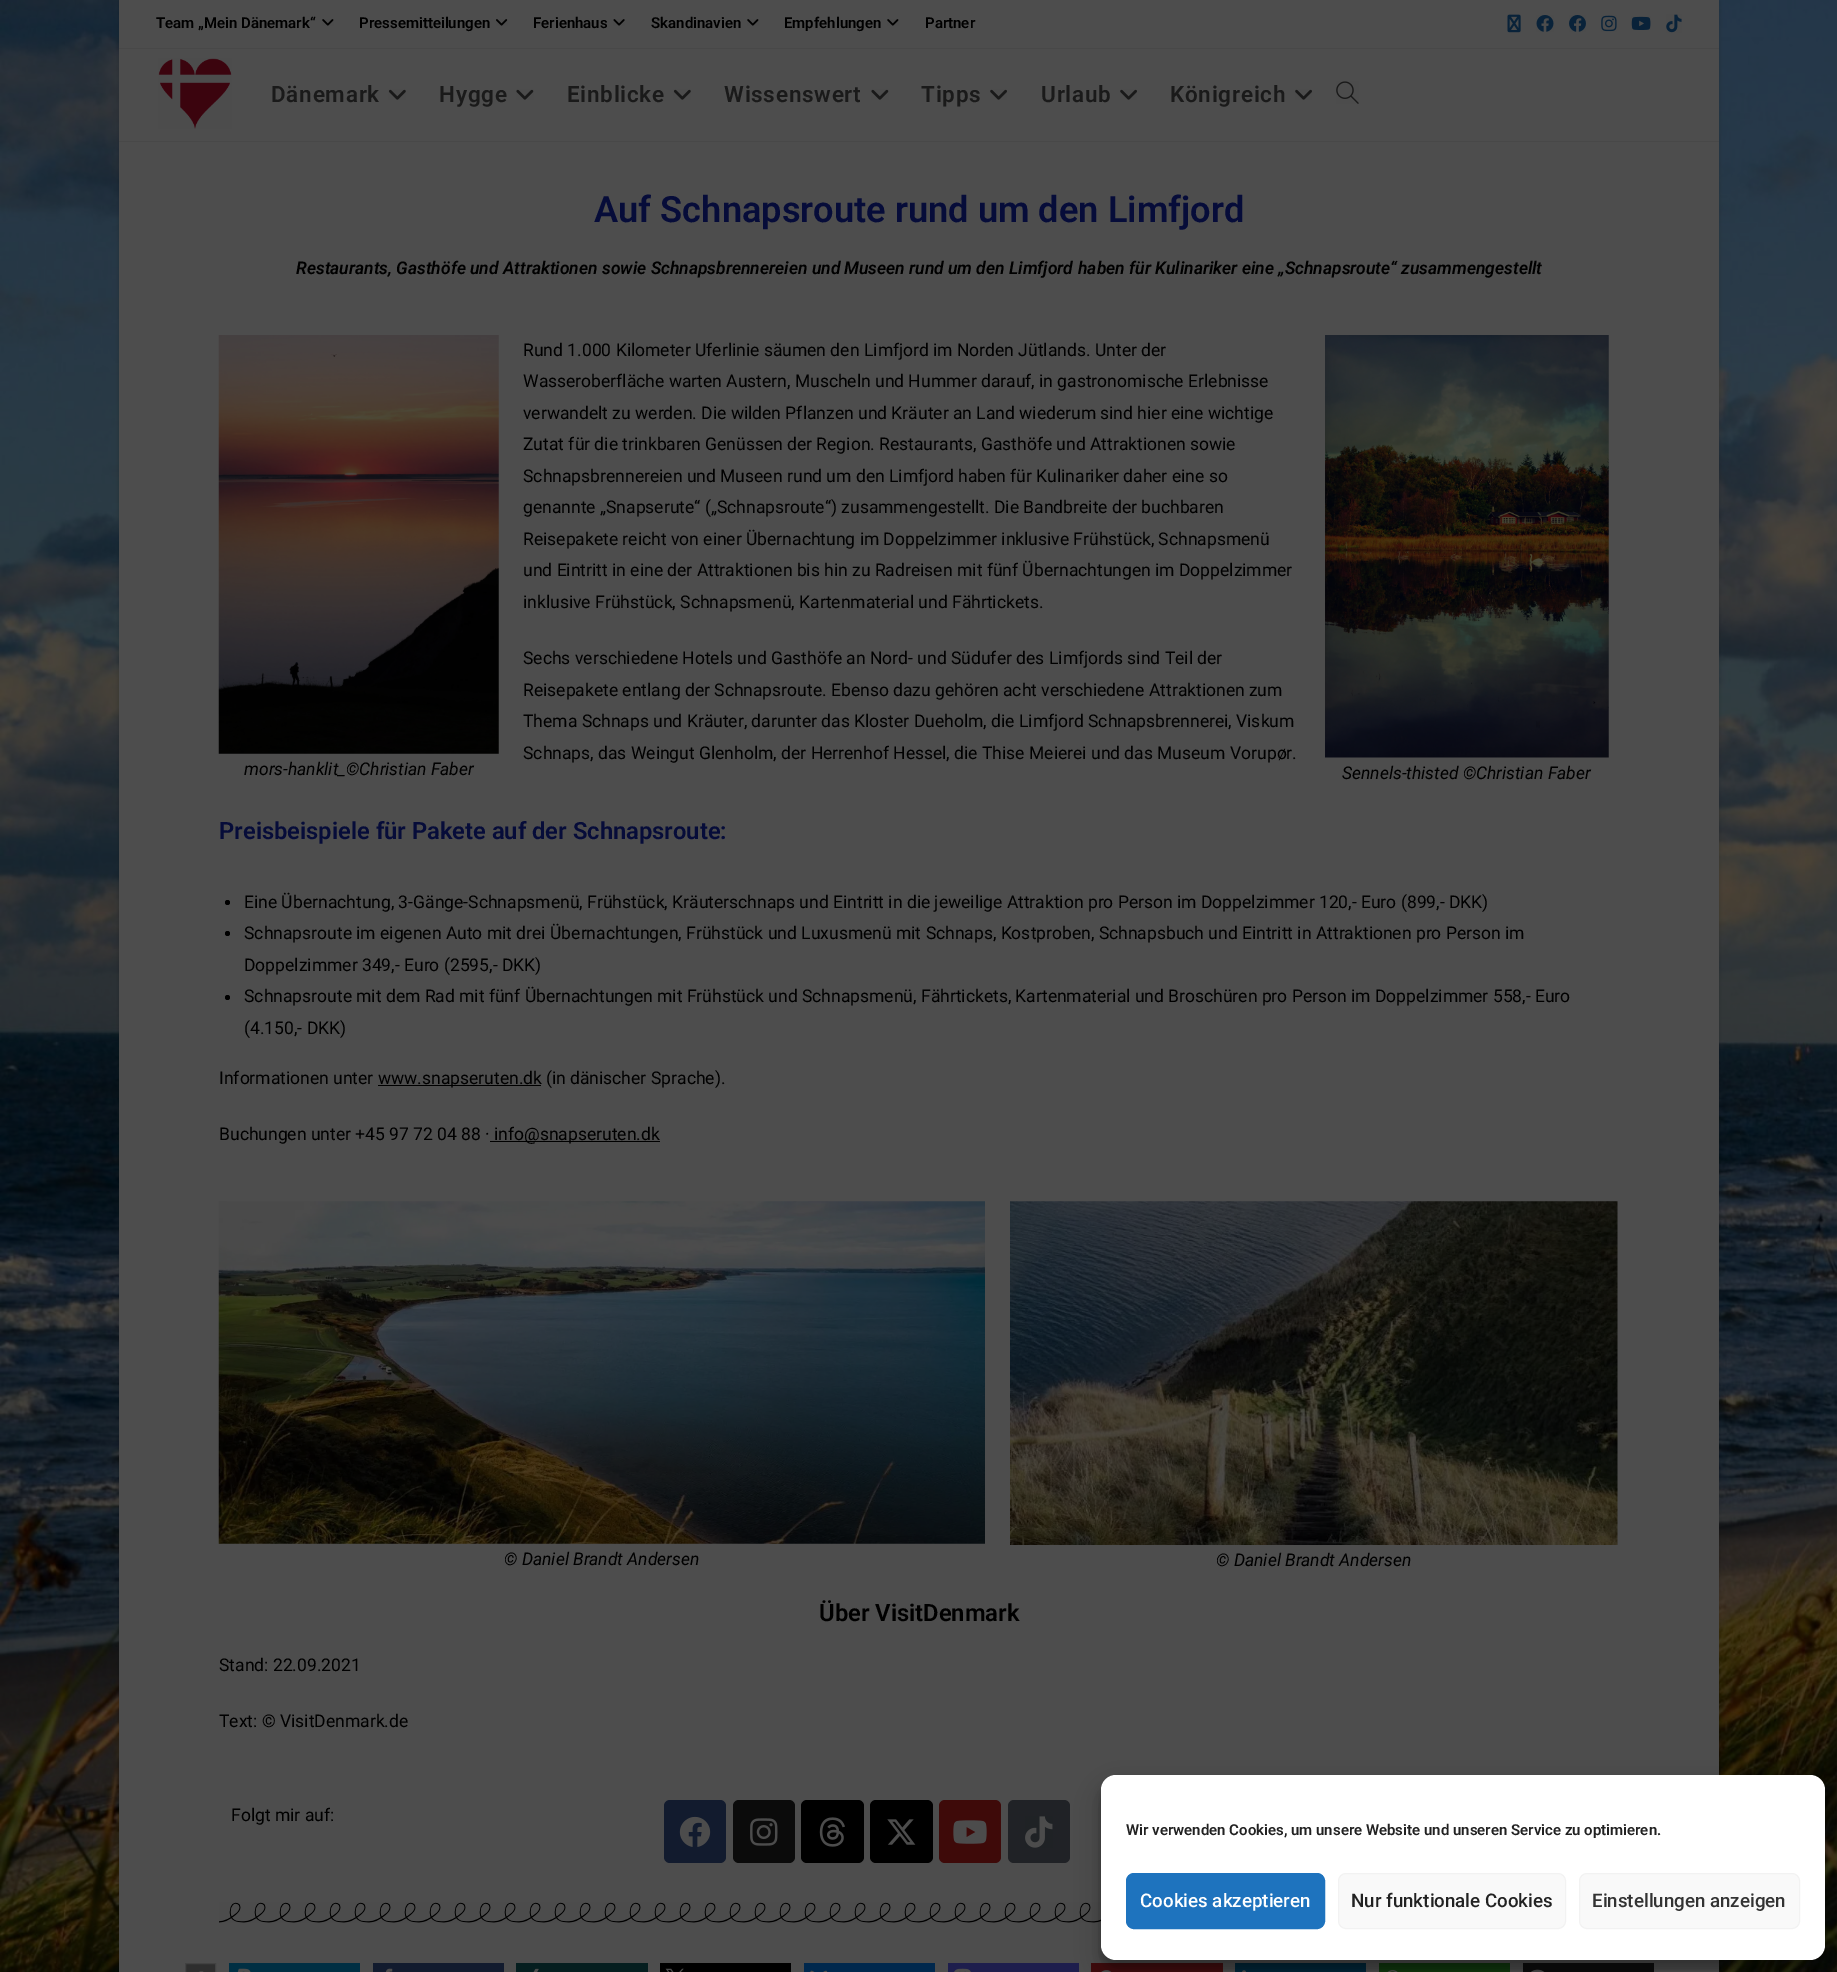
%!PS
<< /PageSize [1837 1972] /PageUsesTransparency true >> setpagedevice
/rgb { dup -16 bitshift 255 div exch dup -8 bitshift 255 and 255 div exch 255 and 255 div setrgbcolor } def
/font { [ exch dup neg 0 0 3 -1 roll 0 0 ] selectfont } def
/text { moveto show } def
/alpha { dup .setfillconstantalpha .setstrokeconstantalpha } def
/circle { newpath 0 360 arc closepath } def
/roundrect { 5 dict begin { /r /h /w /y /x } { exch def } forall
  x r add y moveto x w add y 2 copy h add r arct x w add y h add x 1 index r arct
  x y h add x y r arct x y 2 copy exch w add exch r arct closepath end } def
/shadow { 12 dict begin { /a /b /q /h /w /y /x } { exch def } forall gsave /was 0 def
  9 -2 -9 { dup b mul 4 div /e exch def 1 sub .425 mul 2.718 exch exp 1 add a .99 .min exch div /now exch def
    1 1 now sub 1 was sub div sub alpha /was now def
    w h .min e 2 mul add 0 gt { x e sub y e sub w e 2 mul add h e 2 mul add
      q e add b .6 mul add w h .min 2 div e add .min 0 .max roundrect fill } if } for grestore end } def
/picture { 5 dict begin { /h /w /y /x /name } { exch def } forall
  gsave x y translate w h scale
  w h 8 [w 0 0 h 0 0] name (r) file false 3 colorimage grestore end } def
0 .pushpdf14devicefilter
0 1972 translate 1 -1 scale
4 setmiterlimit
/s1 { /Roboto-SemiBold 15 font 16#000000 rgb } def
/s2 { /Roboto-SemiBold 36.25 font 16#060C39 rgb } def
/s3 { /Roboto-SemiBoldItalic 17.5 font 16#000000 rgb } def
/s4 { /Roboto-Regular 17.5 font 16#000000 rgb } def
/s5 { /Roboto-Italic 17.5 font 16#000000 rgb } def
/s6 { /Roboto-SemiBold 23.75 font 16#060C39 rgb } def
/s7 { /Roboto-SemiBold 23.75 font 16#000000 rgb } def
/s8 { /Roboto-SemiBold 15 font 16#222222 rgb } def
/s9 { /Roboto-Medium 18.75 font 16#FFFFFF rgb } def
/s10 { /Roboto-Medium 18.75 font 16#222222 rgb } def
/s11 { /Roboto-Medium 18.75 font 16#333333 rgb } def
16#FFFFFF rgb
0 0 1837 1972 rectfill
(pic1.raw) 0 0 1837 1972 picture
16#000000 rgb
119 1 1600 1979 0 2.5 0.15 shadow
16#4D4D4D rgb
119 0 1600 1972 rectfill
16#484848 rgb
119 48 1600 1 rectfill
s1
(Team „Mein Dänemark“) 156 28 text
(pic2.raw) 322 19 12 7 picture
(Pressemitteilungen) 359 28 text
(pic3.raw) 496 19 12 7 picture
(Ferienhaus) 533 28 text
(pic4.raw) 613 19 12 7 picture
(Skandinavien) 651 28 text
(pic2.raw) 747 19 12 7 picture
(Empfehlungen) 784 28 text
(pic2.raw) 887 19 12 7 picture
(Partner) 925 28 text
(pic5.raw) 1507 14 14 19 picture
(pic6.raw) 1536 15 18 17 picture
(pic7.raw) 1569 15 17 17 picture
(pic8.raw) 1601 15 16 17 picture
(pic9.raw) 1631 16 20 14 picture
(pic10.raw) 1666 14 16 19 picture
16#484848 rgb
119 141 1600 1 rectfill
(pic11.raw) 158 58 74 71 picture
/Roboto-SemiBold 22.5 font
16#1A1A1A rgb
271 102 moveto 0.75 0 (Dänemark) ashow
(pic12.raw) 388 89 18 11 picture
439 102 moveto 0.75 0 (Hygge) ashow
(pic13.raw) 516 89 18 11 picture
567 102 moveto 0.75 0 (Einblicke) ashow
(pic12.raw) 673 89 18 11 picture
724 102 moveto 0.75 0 (Wissenswert) ashow
(pic13.raw) 871 89 18 11 picture
921 102 moveto 0.75 0 (Tipps) ashow
(pic14.raw) 990 89 17 11 picture
1041 102 moveto 0.75 0 (Urlaub) ashow
(pic14.raw) 1120 89 17 11 picture
1170 102 moveto 0.75 0 (Königreich) ashow
(pic14.raw) 1295 89 17 11 picture
(pic15.raw) 1336 81 23 23 picture
s2
(Auf Schnapsroute rund um den Limfjord) 594 222 text
s3
(Restaurants, Gasthöfe und Attraktionen sowie Schnapsbrennereien und) 296 274 text
(Museen) 844 274 text
(rund um den) 909 274 text
(Limfjord) 1009 274 text
(haben für Kulinariker eine „Schnapsroute“ zusammengestellt) 1078 274 text
s4
(Rund 1.000 Kilometer Uferlinie säumen den) 523 356 text
(Limfjord) 864 356 text
(im Norden Jütlands. Unter der) 933 356 text
(Wasseroberfläche warten Austern, Muscheln und Hummer darauf, in gastronomische Erlebnisse) 523 387 text
(verwandelt zu werden. Die wilden Pflanzen und Kräuter an Land wiederum sind hier eine wichtige) 523 419 text
(Zutat für die trinkbaren Genüssen der Region. Restaurants, Gasthöfe und Attraktionen sowie) 523 450 text
(Schnapsbrennereien und) 523 482 text
(Museen) 720 482 text
(rund um den) 787 482 text
(Limfjord) 889 482 text
(haben für Kulinariker daher eine so) 958 482 text
(genannte „Snapserute“ \(„Schnapsroute“\) zusammengestellt. Die Bandbreite der buchbaren) 523 513 text
(Reisepakete reicht von einer Übernachtung im Doppelzimmer inklusive Frühstück, Schnapsmenü) 523 545 text
(und Eintritt in eine der Attraktionen bis hin zu Rad) 523 576 text
(reisen) 905 576 text
(mit fünf Übernachtungen im Doppelzimmer) 957 576 text
(inklusive Frühstück, Schnapsmenü, Kartenmaterial und Fährtickets.) 523 608 text
(Sechs verschiedene Hotels und Gasthöfe an Nord- und Südufer des) 523 664 text
(Limfjord) 1049 664 text
(s sind Teil der) 1114 664 text
(Reisepakete entlang der Schnapsroute. Ebenso dazu gehören acht verschiedene Attraktionen zum) 523 696 text
(Thema Schnaps und Kräuter, darunter das Kloster Dueholm, die) 523 727 text
(Limfjord) 1019 727 text
(Schnapsbrennerei, Viskum) 1088 727 text
(Schnaps, das Weingut Glenholm, der Herrenhof Hessel, die Thise Meierei und das) 523 759 text
(Museum) 1157 759 text
(Vorupør.) 1230 759 text
(pic16.raw) 218 335 281 419 picture
s5
(mors-hanklit_©Christian Faber) 244 775 text
(pic17.raw) 1325 335 284 423 picture
(Sennels-thisted ©Christian Faber) 1342 779 text
s6
(Preisbeispiele für Pakete auf der Schnapsroute:) 219 839 text
16#000000 rgb
227.5 902.5 2.5 circle fill
s4
(Eine Übernachtung, 3-Gänge-Schnapsmenü, Frühstück, Kräuterschnaps und Eintritt in die jeweilige Attraktion pro Person im Doppelzimmer 120,- Euro \(899,- DKK\)) 244 908 text
227.5 933.5 2.5 circle fill
(Schnapsroute im eigenen Auto mit drei Übernachtungen, Frühstück und Luxusmenü mit Schnaps, Kostproben, Schnapsbuch und Eintritt in Attraktionen pro Person im) 244 939 text
(Doppelzimmer 349,- Euro \(2595,- DKK\)) 244 971 text
227.5 997.5 2.5 circle fill
(Schnapsroute mit dem Rad mit fünf Übernachtungen mit Frühstück und Schnapsmenü, Fährtickets, Kartenmaterial und Broschüren pro Person im Doppelzimmer 558,- Euro) 244 1002 text
(\(4.150,- DKK\)) 244 1034 text
(Informationen unter) 219 1084 text
378 1085 163 1 rectfill
(www.snapseruten.dk) 378 1084 text
(\(in) 546 1084 text
(dänisch) 570 1084 text
(er) 631 1084 text
(Sprache) 651 1084 text
(\).) 715 1084 text
(Buchungen unter +45 97 72 04 88 ·) 219 1140 text
490 1141 170 1 rectfill
(info@snapseruten.dk) 494 1140 text
(pic18.raw) 218 1201 767 343 picture
s5
(© Daniel Brandt Andersen) 504 1565 text
(pic19.raw) 1010 1201 608 344 picture
(© Daniel Brandt Andersen) 1216 1566 text
s7
(Über VisitDenmark) 819 1621 text
s4
(Stand: 22.09.2021) 219 1671 text
(Text: ©) 219 1727 text
(VisitDenmark.de) 280 1727 text
(Folgt mir auf:) 231 1821 text
16#121B2E rgb
664 1800 62 63 6 roundrect fill
(pic20.raw) 679 1816 32 31 picture
16#0B0B0B rgb
733 1800 62 63 6 roundrect fill
(pic21.raw) 750 1818 28 28 picture
16#000000 rgb
801 1800 63 63 6 roundrect fill
(pic22.raw) 819 1817 26 30 picture
870 1800 63 63 6 roundrect fill
(pic23.raw) 887 1819 29 26 picture
16#3E0A09 rgb
939 1800 62 63 6 roundrect fill
(pic24.raw) 953 1820 34 24 picture
16#202226 rgb
1008 1800 62 63 6 roundrect fill
(pic25.raw) 1025 1816 28 32 picture
(pic26.raw) 219 1902 882 21 picture
16#2E2E2E rgb
185.5 1963.5 moveto 215.5 1963.5 lineto 215.5 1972.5 lineto 185.5 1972.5 lineto closepath gsave fill grestore
16#424242 rgb
stroke
(pic27.raw) 199 1971 5 1 picture
16#002F43 rgb
229 1963 131 9 rectfill
(pic28.raw) 237 1968 14 4 picture
16#121B2E rgb
373 1963 131 9 rectfill
(pic29.raw) 385 1968 8 4 picture
16#051E1F rgb
516 1963 132 9 rectfill
(pic30.raw) 533 1968 6 4 picture
16#000000 rgb
660 1963 131 9 rectfill
(pic31.raw) 665 1968 19 4 picture
16#00284D rgb
804 1963 131 9 rectfill
(pic32.raw) 810 1970 18 2 picture
16#1E1E4D rgb
948 1963 131 9 rectfill
(pic33.raw) 954 1968 17 4 picture
16#3D0A0C rgb
1091 1963 132 9 rectfill
(pic34.raw) 1101 1970 11 2 picture
16#002436 rgb
1235 1963 131 9 rectfill
(pic35.raw) 1242 1970 4 2 picture
16#10350B rgb
1379 1963 131 9 rectfill
(pic36.raw) 1387 1970 11 2 picture
16#090909 rgb
1523 1963 131 9 rectfill
(pic37.raw) 1531 1969 14 3 picture
16#000000 rgb
1101 1783 724 185 15 4 0.23 shadow
1101 1788 724 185 15 12.5 0.19 shadow
16#FFFFFF rgb
1101 1775 724 185 15 roundrect fill
s8
(Wir verwenden Cookies, um unsere Website und unseren Service zu optimieren.) 1126 1835 text
16#1E73BE rgb
1126.5 1873.5 198 55 7.5 roundrect gsave fill grestore
stroke
s9
(Cookies akzeptieren) 1140 1907 text
16#F9F9F9 rgb
1338.5 1873.5 227 55 7.5 roundrect gsave fill grestore
16#F2F2F2 rgb
stroke
s10
(Nur funktionale Cookies) 1351 1907 text
16#F9F9F9 rgb
1579.5 1873.5 220 55 7.5 roundrect gsave fill grestore
16#F2F2F2 rgb
stroke
s11
(Einstellungen anzeigen) 1592 1907 text
.poppdf14devicefilter showpage
